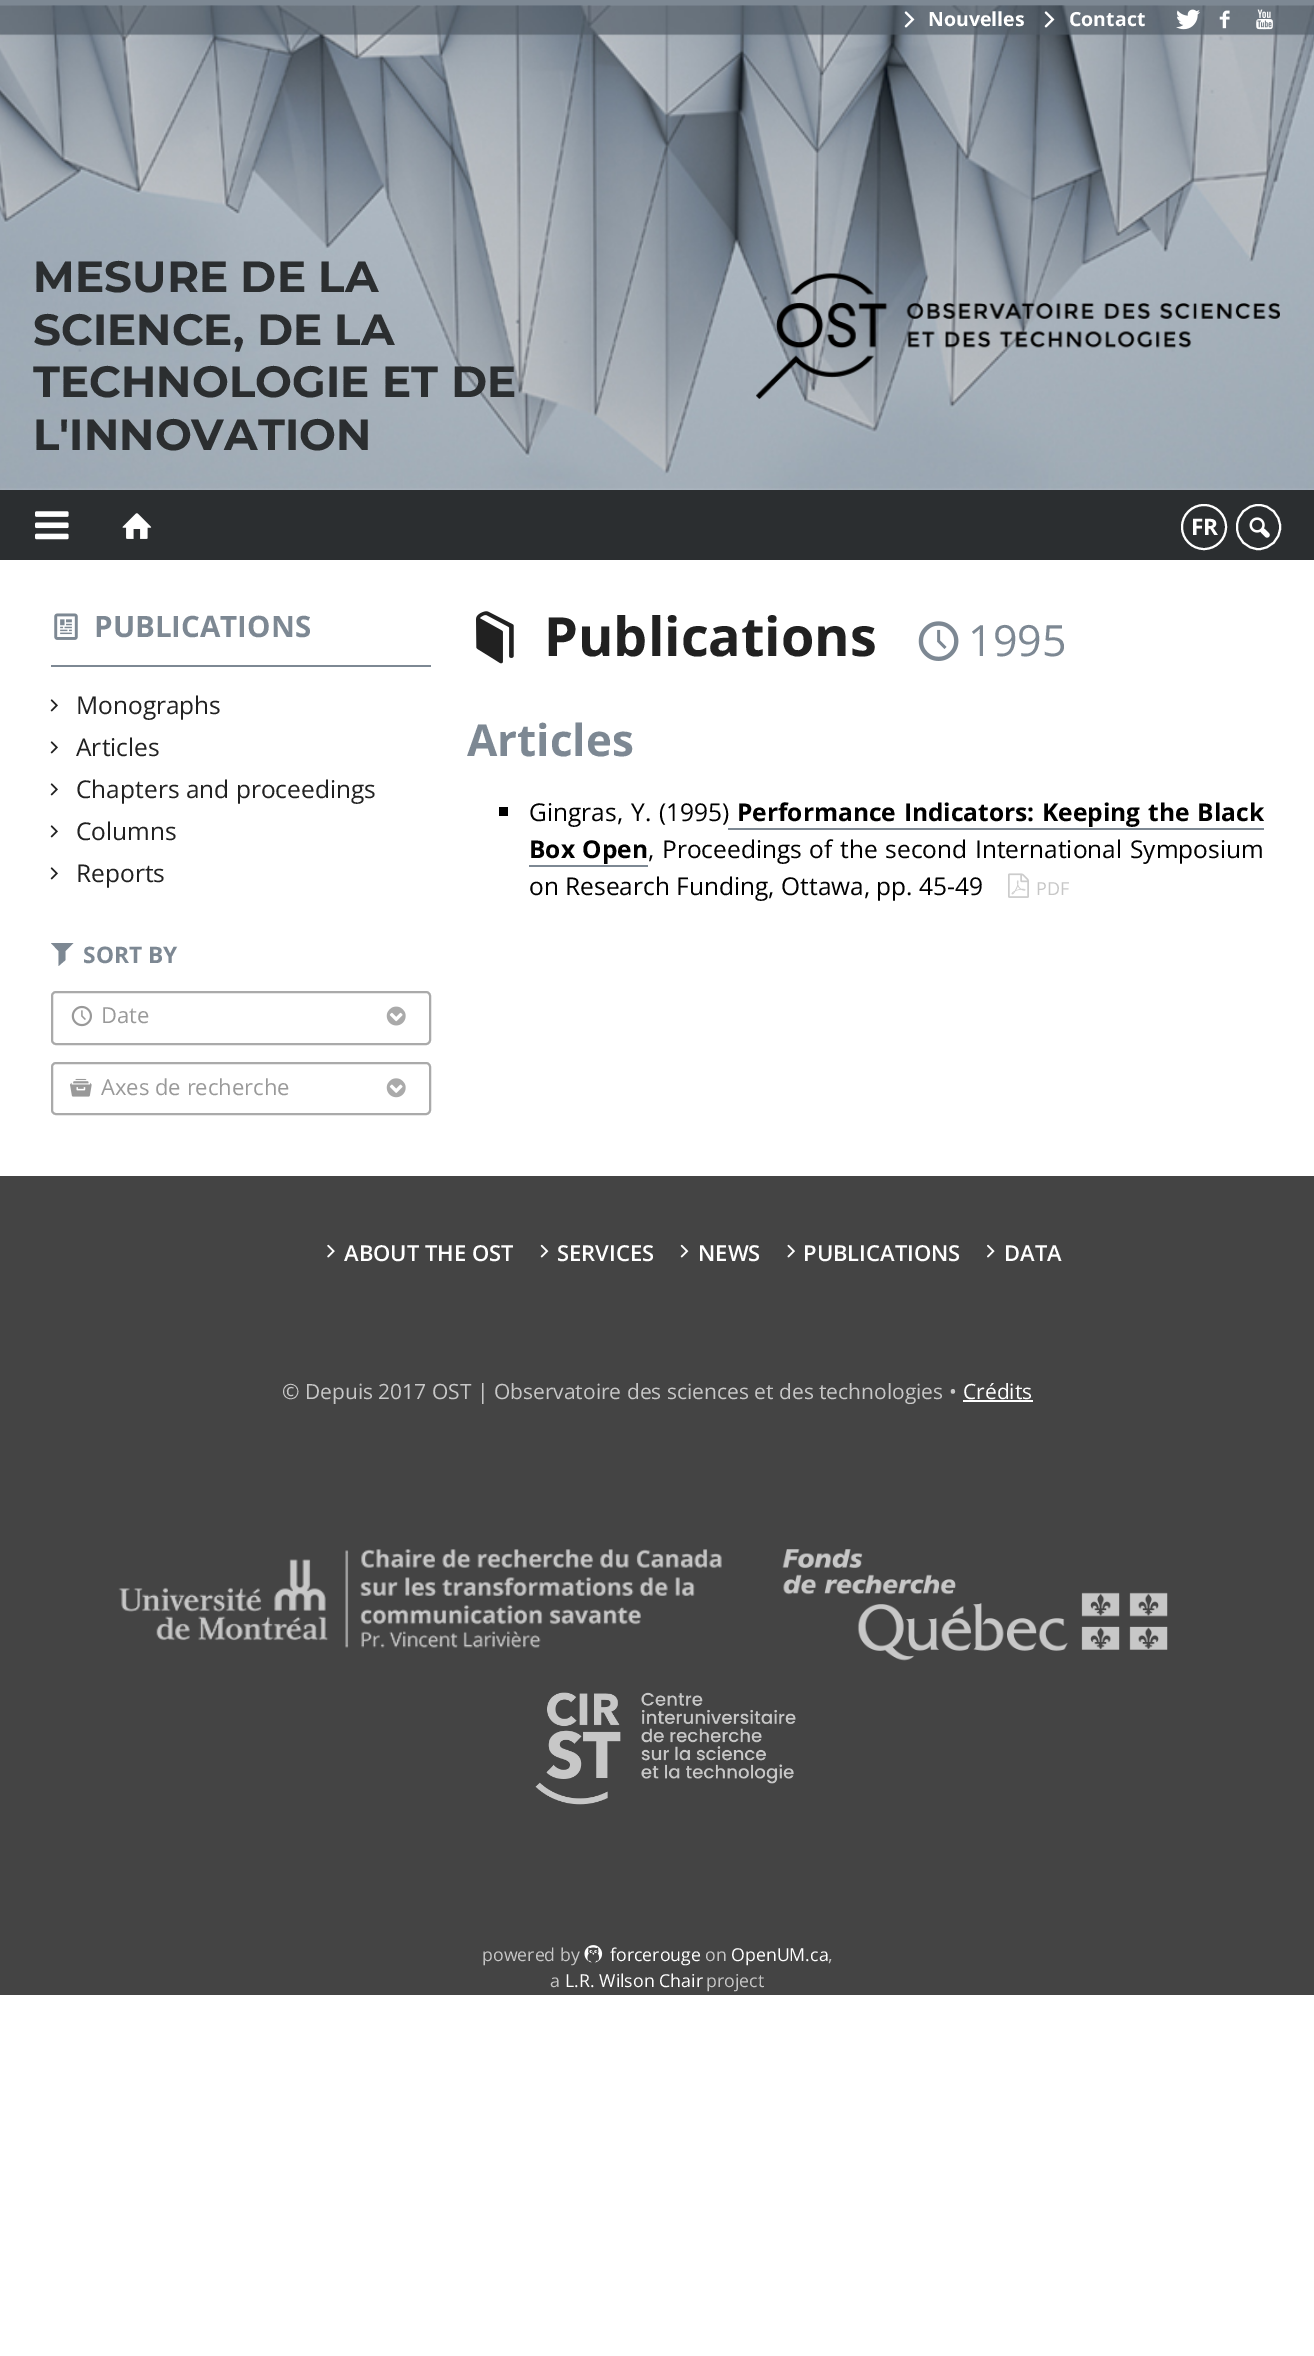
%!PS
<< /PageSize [1314 2356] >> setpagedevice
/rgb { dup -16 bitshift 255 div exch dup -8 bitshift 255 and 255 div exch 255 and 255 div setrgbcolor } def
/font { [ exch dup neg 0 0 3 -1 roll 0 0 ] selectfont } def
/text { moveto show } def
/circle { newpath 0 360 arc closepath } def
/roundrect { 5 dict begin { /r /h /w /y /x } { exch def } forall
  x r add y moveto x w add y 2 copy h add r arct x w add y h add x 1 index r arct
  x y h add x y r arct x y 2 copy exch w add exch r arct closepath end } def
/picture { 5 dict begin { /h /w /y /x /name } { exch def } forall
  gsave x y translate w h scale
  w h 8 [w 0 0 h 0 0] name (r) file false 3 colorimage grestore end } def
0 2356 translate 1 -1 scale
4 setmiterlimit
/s1 { /OpenSans-Bold 19.5 font 16#FFFFFF rgb } def
/s2 { /Montserrat-Bold 43.75 font 16#2B2E30 rgb } def
/s3 { /OpenSans-Bold 22.75 font 16#FFFFFF rgb } def
/s4 { /OpenSans-Bold 29.5 font 16#7D8893 rgb } def
/s5 { /OpenSans-Regular 24.5 font 16#212121 rgb } def
/s6 { /OpenSans-Bold 22.75 font 16#7D8893 rgb } def
/s7 { /OpenSans-Regular 22 font 16#999999 rgb } def
/s8 { /OpenSans-Bold 54 font 16#212121 rgb } def
/s9 { /OpenSans-Regular 43 font 16#7D8893 rgb } def
/s10 { /OpenSans-Bold 44 font 16#7D8893 rgb } def
/s11 { /OpenSans-Regular 24.5 font 16#000000 rgb } def
/s12 { /OpenSans-Regular 18 font 16#C7C7C7 rgb } def
/s13 { /OpenSans-SemiBold 22 font 16#FFFFFF rgb } def
/s14 { /OpenSans-Regular 21 font 16#C7C7C7 rgb } def
/s15 { /OpenSans-Regular 21 font 16#FFFFFF rgb } def
/s16 { /OpenSans-Regular 17.75 font 16#C7C7C7 rgb } def
/s17 { /OpenSans-Regular 17.75 font 16#FFFFFF rgb } def
16#FFFFFF rgb
0 0 1314 2356 rectfill
(pic1.raw) 0 5 1314 485 picture
16#7D8893 rgb
0 0 1314 5 rectfill
(pic2.raw) 904 11 11 17 picture
s1
(Nouvelles) 928 26 text
(pic3.raw) 1044 11 11 17 picture
(Contact) 1069 26 text
(pic4.raw) 1176 9 24 21 picture
(pic5.raw) 1219 10 11 19 picture
(pic6.raw) 1256 9 17 21 picture
s2
(MESURE DE LA) 33 292 text
(SCIENCE, DE LA) 33 345 text
(TECHNOLOGIE ET DE) 33 397 text
(L'INNOVATION) 33 450 text
(pic7.raw) 756 273 524 126 picture
0 490 1314 70 rectfill
(pic8.raw) 35 511 34 29 picture
(pic9.raw) 122 513 30 26 picture
16#FFFFFF rgb
2 setlinewidth
1204 527 22 circle stroke
s3
(FR) 1191 535 text
1237 505 43 44 21.5 roundrect stroke
(pic10.raw) 1249 517 21 21 picture
16#7D8893 rgb
51 665 380 2 rectfill
(pic11.raw) 54 613 24 27 picture
s4
(PUBLICATIONS) 94 637 text
(pic12.raw) 50 699 8 13 picture
s5
(Monographs) 76 714 text
(pic12.raw) 50 741 8 13 picture
(Articles) 76 756 text
(pic12.raw) 50 783 8 13 picture
(Chapters and proceedings) 76 798 text
(pic12.raw) 50 825 8 13 picture
(Columns) 76 840 text
(pic12.raw) 50 867 8 13 picture
(Reports) 76 882 text
16#7D8893 rgb
51 943 moveto 73.5 943 lineto 65.5 951 lineto 65.5 960 lineto 58.5 966 lineto 58.5 951 lineto closepath fill
s6
(SORT BY) 83 963 text
16#AAAAAA rgb
52 992 378 52 4 roundrect stroke
(pic13.raw) 71 1005 21 22 picture
s7
(Date) 101 1023 text
(pic14.raw) 386 1006 20 20 picture
16#AAAAAA rgb
52 1063 378 51 4 roundrect stroke
(pic15.raw) 70 1078 22 19 picture
s7
(Axes de recherche) 101 1095 text
(pic16.raw) 386 1078 20 20 picture
(pic17.raw) 476 611 38 53 picture
s8
(Publications) 544 656 text
(pic18.raw) 918 621 41 40 picture
s9
(1995) 968 656 text
s10
(Articles) 467 756 text
16#000000 rgb
499 807 9 9 rectfill
/OpenSans-Regular 24.5 font
529 821 moveto 1.5 0 32 (Gingras, Y. \(1995\)) widthshow
16#7D8893 rgb
728 828 536 2 rectfill
/OpenSans-Bold 24.5 font
16#000000 rgb
737 821 moveto 1.5 0 32 (Performance Indicators: Keeping the Black) widthshow
529 858 moveto 1.25 0 32 (Box Open) widthshow
16#7D8893 rgb
529 865 119 2 rectfill
/OpenSans-Regular 24.5 font
16#000000 rgb
648 858 moveto 1.25 0 32 (, Proceedings of the second International Symposium) widthshow
(on Research Funding, Ottawa, pp. 45-49) 529 895 text
(pic19.raw) 1008 873 21 25 picture
s12
(PDF) 1036 895 text
16#444444 rgb
0 1176 1314 819 rectfill
(pic20.raw) 327 1244 8 14 picture
s13
(ABOUT THE OST) 344 1261 text
(pic21.raw) 540 1244 9 14 picture
(SERVICES) 557 1261 text
(pic21.raw) 680 1244 9 14 picture
(NEWS) 698 1261 text
(pic22.raw) 787 1244 8 14 picture
(PUBLICATIONS) 803 1261 text
(pic23.raw) 987 1244 8 14 picture
(DATA) 1004 1261 text
s14
(© Depuis 2017 OST | Observatoire des sciences et des technologies •) 282 1399 text
s15
(Crédits) 963 1399 text
963 1400 70 2 rectfill
(pic24.raw) 118 1549 604 99 picture
(pic25.raw) 782 1549 386 112 picture
(pic26.raw) 535 1692 261 113 picture
s16
(powered by) 482 1961 text
(pic27.raw) 584 1945 19 18 picture
s17
(forcerouge) 610 1961 text
s16
(on) 705 1961 text
s17
(OpenUM.ca) 731 1961 text
s16
(,) 828 1961 text
(a) 550 1987 text
s17
(L.R. Wilson Chair) 565 1987 text
s16
(project) 706 1987 text
showpage
